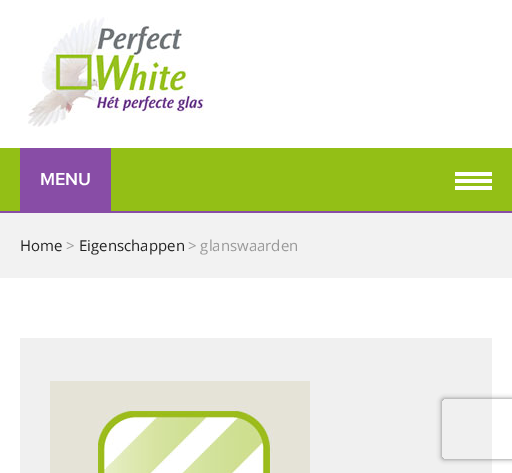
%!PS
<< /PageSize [512 473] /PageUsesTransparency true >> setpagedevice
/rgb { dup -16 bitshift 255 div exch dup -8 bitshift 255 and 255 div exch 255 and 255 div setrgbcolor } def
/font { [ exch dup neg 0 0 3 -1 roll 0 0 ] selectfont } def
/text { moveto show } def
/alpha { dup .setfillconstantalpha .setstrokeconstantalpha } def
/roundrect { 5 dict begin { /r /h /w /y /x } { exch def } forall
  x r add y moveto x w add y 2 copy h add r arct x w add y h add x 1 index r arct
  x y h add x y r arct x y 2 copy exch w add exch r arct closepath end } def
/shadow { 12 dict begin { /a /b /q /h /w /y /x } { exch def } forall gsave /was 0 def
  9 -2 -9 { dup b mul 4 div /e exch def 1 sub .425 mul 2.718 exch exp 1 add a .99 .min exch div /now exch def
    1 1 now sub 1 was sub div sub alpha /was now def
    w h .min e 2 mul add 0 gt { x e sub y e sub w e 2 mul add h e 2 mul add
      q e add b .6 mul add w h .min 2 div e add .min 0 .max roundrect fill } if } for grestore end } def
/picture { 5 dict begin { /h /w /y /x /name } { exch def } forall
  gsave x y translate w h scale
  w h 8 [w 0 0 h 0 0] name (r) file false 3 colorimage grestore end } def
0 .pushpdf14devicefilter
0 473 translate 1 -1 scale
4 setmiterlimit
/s1 { /ProximaNova-SemiBold 18 font 16#FFFFFF rgb } def
/s2 { /OpenSans-Regular 15 font 16#242424 rgb } def
/s3 { /OpenSans-Regular 15 font 16#999999 rgb } def
16#FFFFFF rgb
0 0 512 473 rectfill
(pic1.raw) 28 17 176 110 picture
16#884DA6 rgb
0 211 512 2 rectfill
16#93BF16 rgb
0 148 512 63 rectfill
16#884DA6 rgb
20 148 91 63 rectfill
s1
(MENU) 40 185 text
455 179 37 4 rectfill
455 172 37 4 rectfill
455 186 37 4 rectfill
16#F2F2F2 rgb
0 213 512 65 rectfill
s2
(Home) 20 251 text
s3
(>) 66 251 text
s2
(Eigenschappen) 79 251 text
s3
(> glanswaarden) 188 251 text
16#F0F0F0 rgb
20 338 472 135 rectfill
(pic2.raw) 50 381 260 92 picture
gsave
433 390 moveto 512 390 lineto 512 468 lineto 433 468 lineto closepath 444 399 moveto 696 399 lineto 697 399 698 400 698 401 curveto 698 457 lineto 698 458 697 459 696 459 curveto 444 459 lineto 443 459 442 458 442 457 curveto 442 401 lineto 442 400 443 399 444 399 curveto closepath eoclip newpath
16#808080 rgb
442 399 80 60 2 2.5 1 shadow
grestore
.poppdf14devicefilter showpage
